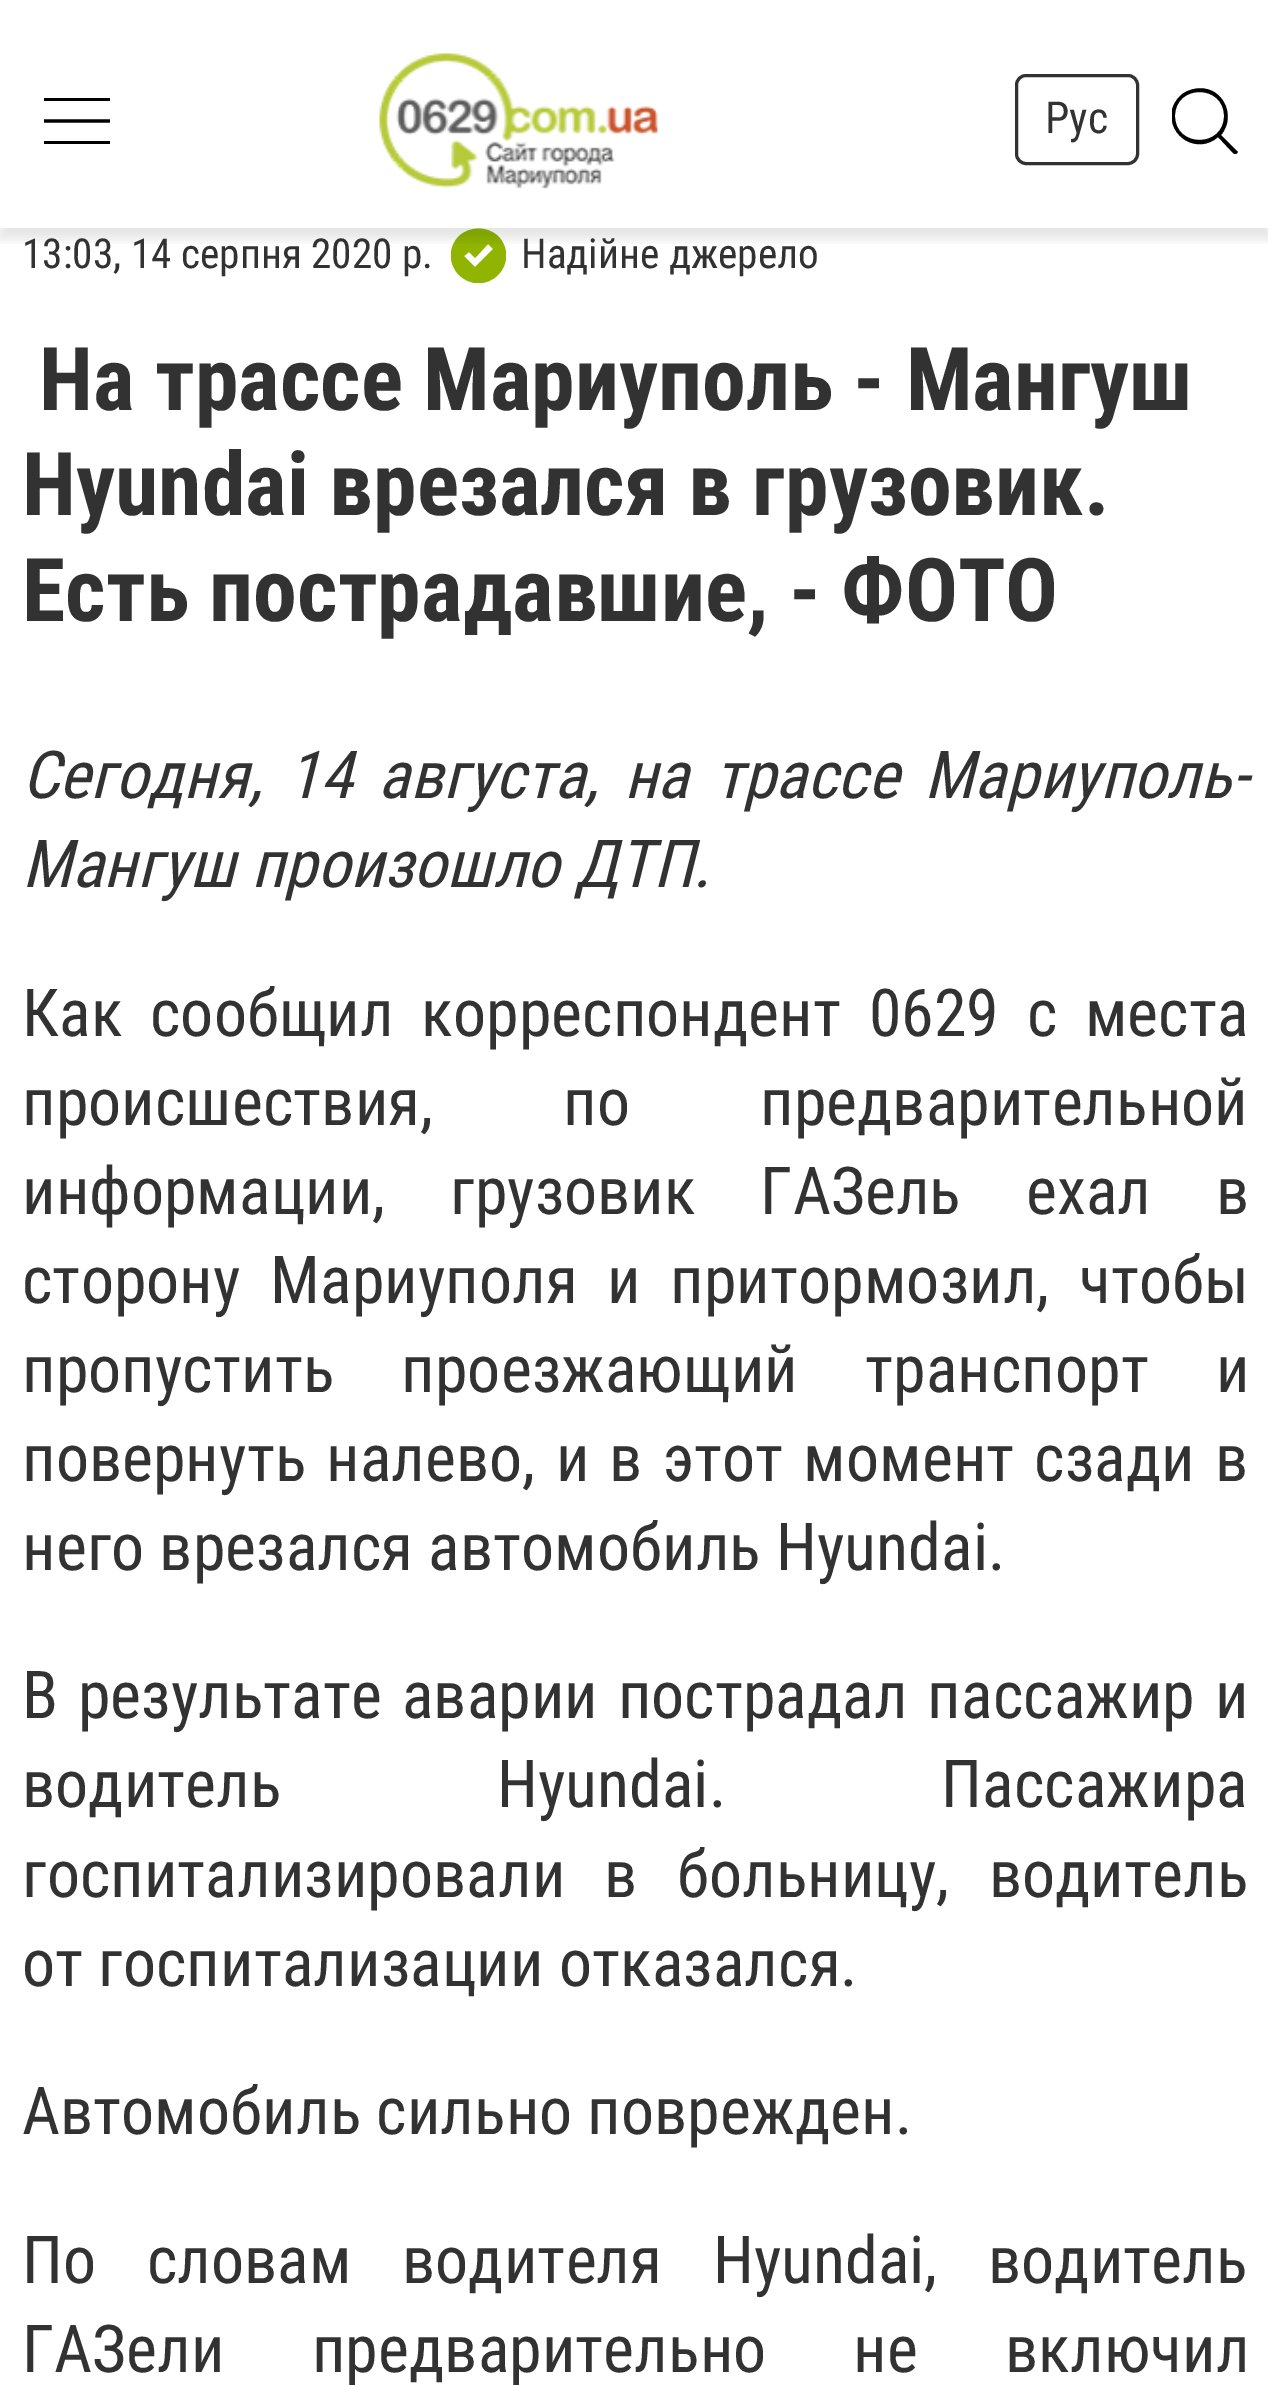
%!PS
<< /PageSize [1268 2385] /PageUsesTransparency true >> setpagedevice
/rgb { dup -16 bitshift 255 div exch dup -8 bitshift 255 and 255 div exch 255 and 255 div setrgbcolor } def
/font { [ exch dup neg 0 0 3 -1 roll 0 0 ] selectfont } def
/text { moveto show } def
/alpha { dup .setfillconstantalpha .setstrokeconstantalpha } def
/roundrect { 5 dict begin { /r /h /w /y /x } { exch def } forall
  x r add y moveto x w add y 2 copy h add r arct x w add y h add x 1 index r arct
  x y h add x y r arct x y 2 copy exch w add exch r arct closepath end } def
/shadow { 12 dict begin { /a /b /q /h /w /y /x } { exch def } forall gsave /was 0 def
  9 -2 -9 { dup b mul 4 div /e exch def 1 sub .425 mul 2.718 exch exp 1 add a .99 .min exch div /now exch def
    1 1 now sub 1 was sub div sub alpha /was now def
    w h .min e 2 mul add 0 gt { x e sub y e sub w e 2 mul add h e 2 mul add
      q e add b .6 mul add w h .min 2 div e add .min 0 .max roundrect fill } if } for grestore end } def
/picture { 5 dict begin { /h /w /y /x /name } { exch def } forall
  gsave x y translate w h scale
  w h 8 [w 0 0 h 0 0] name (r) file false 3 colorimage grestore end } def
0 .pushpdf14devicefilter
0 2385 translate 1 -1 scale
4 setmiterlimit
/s1 { /RobotoCondensed-Regular 44 font 16#323232 rgb } def
/s2 { /RobotoCondensed-Regular 41.25 font 16#323232 rgb } def
/s3 { /RobotoCondensed-Bold 88 font 16#323232 rgb } def
/s4 { /RobotoCondensed-Italic 66 font 16#323232 rgb } def
/s5 { /RobotoCondensed-Regular 66 font 16#323232 rgb } def
16#FFFFFF rgb
0 0 1268 2385 rectfill
gsave
451 228 55 55 rectclip
16#90B400 rgb
498 275 moveto 509 264 509 247 498 236 curveto 487 226 470 226 459 236 curveto 448 247 448 264 459 275 curveto 470 286 487 286 498 275 curveto closepath 469 252 moveto 475 258 lineto 488 244 lineto 493 249 lineto 475 267 lineto 464 256 lineto closepath fill
grestore
gsave
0 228 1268 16 rectclip
16#000000 rgb
0 11 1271 228 0 5.5 0.1 shadow
grestore
16#000000 rgb
44 98 66 3 rectfill
3.3 setlinewidth
44 121 moveto 110 121 lineto stroke
44 141 66 3 rectfill
(pic1.raw) 379 53 279 136 picture
16#323232 rgb
3 setlinewidth
1016.5 75.5 121 88 9.5 roundrect stroke
s1
(Рус) 1045 133 text
gsave
1172 88 66 66 rectclip
16#000000 rgb
1237 151 moveto 1221 135 lineto 1238 115 1221 83 1194 89 curveto 1189 90 1184 92 1180 96 curveto 1176 100 1173 105 1172 110 curveto 1167 137 1198 155 1218 137 curveto 1234 154 lineto 1236 155 1239 152 1237 151 curveto closepath 1175 116 moveto 1175 84 1224 84 1224 116 curveto 1224 148 1175 148 1175 116 curveto closepath fill
grestore
s2
(13:03, 14 серпня 2020 р.) 22 268 text
(Надійне джерело) 521 268 text
s3
(На трассе Мариуполь - Мангуш) 39 410 text
(Hyundai врезался в грузовик.) 22 515 text
(Есть пострадавшие, - ФОТО) 22 621 text
/RobotoCondensed-Italic 66 font
22 798 moveto 10.5 0 32 (Сегодня, 14 августа, на трассе Мариуполь-) widthshow
(Мангуш произошло ДТП.) 22 887 text
/RobotoCondensed-Regular 66 font
22 1036 moveto 12.5 0 32 (Как сообщил корреспондент 0629 с места) widthshow
22 1125 moveto 115 0 32 (происшествия, по предварительной) widthshow
22 1214 moveto 49.5 0 32 (информации, грузовик ГАЗель ехал в) widthshow
22 1303 moveto 14.5 0 32 (сторону Мариуполя и притормозил, чтобы) widthshow
22 1392 moveto 52 0 32 (пропустить проезжающий транспорт и) widthshow
22 1481 moveto 5 0 32 (повернуть налево, и в этот момент сзади в) widthshow
(него врезался автомобиль Hyundai.) 22 1570 text
22 1718 moveto 4.5 0 32 (В результате аварии пострадал пассажир и) widthshow
22 1807 moveto 200 0 32 (водитель Hyundai. Пассажира) widthshow
22 1897 moveto 24 0 32 (госпитализировали в больницу, водитель) widthshow
(от госпитализации отказался.) 22 1986 text
(Автомобиль сильно поврежден.) 22 2134 text
22 2283 moveto 35.5 0 32 (По словам водителя Hyundai, водитель) widthshow
22 2372 moveto 72 0 32 (ГАЗели предварительно не включил) widthshow
.poppdf14devicefilter showpage
